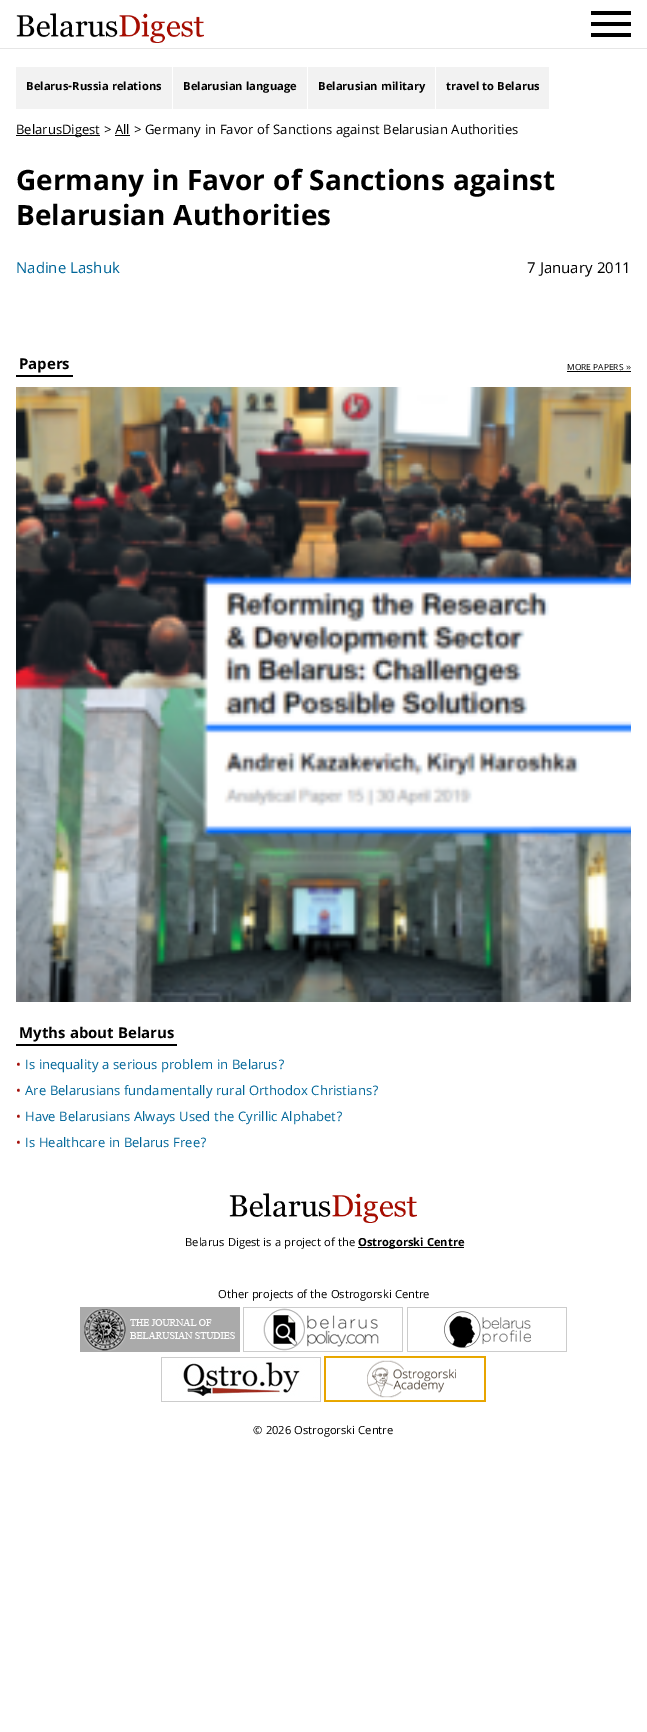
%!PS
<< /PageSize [647 1732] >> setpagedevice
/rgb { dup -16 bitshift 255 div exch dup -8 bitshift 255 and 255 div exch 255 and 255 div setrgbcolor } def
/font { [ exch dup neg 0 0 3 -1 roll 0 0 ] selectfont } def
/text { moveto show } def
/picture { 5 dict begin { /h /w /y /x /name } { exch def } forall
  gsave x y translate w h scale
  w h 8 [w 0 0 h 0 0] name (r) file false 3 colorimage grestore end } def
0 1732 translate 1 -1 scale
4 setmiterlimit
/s1 { /Khula-Bold 12 font 16#000000 rgb } def
/s2 { /Khula-Regular 14 font 16#000000 rgb } def
/s3 { /Khula-Bold 30 font 16#000000 rgb } def
/s4 { /Khula-Regular 16 font 16#006699 rgb } def
/s5 { /Khula-Regular 16 font 16#000000 rgb } def
/s6 { /Khula-Bold 16 font 16#000000 rgb } def
/s7 { /Khula-Regular 9 font 16#000000 rgb } def
/s8 { /LiberationSans-Regular 9 font 16#000000 rgb } def
/s9 { /Khula-Regular 14 font 16#A3100A rgb } def
/s10 { /Khula-Regular 14 font 16#006699 rgb } def
/s11 { /Khula-Regular 12 font 16#000000 rgb } def
16#FFFFFF rgb
0 0 647 1732 rectfill
16#E6E6E6 rgb
0 48 647 1 rectfill
(pic1.raw) 16 13 188 30 picture
16#000000 rgb
591 37 moveto 631 37 lineto 631 33 lineto 591 33 lineto closepath 591 26 moveto 631 26 lineto 631 22 lineto 591 22 lineto closepath 591 11 moveto 591 15 lineto 631 15 lineto 631 11 lineto closepath fill
16#F2F2F2 rgb
16 67 156 42 rectfill
s1
(Belarus-Russia relations) 26 90 text
16#F2F2F2 rgb
173 67 134 42 rectfill
s1
(Belarusian language) 183 90 text
16#F2F2F2 rgb
308 67 127 42 rectfill
s1
(Belarusian military) 318 90 text
16#F2F2F2 rgb
436 67 113 42 rectfill
s1
(travel to Belarus) 446 90 text
16 135 84 1 rectfill
s2
(BelarusDigest > All > Germany in Favor of Sanctions against Belarusian Authorities) 16 134 text
115 135 15 1 rectfill
s3
(Germany in Favor of Sanctions against) 16 190 text
(Belarusian Authorities) 16 225 text
s4
(Nadine Lashuk) 16 273 text
s5
(7 January 2011) 527 273 text
16 375 57 2 rectfill
s6
(Papers) 19 369 text
s7
(MORE PAPERS) 567 370 text
s8
(») 626 370 text
567 371 64 1 rectfill
(pic2.raw) 16 387 615 615 picture
16 1044 161 2 rectfill
s6
(Myths about Belarus) 19 1038 text
s9
(•) 16 1069 text
s10
(Is inequality a serious problem in Belarus?) 25 1069 text
s9
(•) 16 1095 text
s10
(Are Belarusians fundamentally rural Orthodox Christians?) 25 1095 text
s9
(•) 16 1121 text
s10
(Have Belarusians Always Used the Cyrillic Alphabet?) 25 1121 text
s9
(•) 16 1147 text
s10
(Is Healthcare in Belarus Free?) 25 1147 text
(pic3.raw) 229 1193 188 30 picture
s11
(Belarus Digest is a project of the) 185 1246 text
358 1247 106 1 rectfill
s1
(Ostrogorski Centre) 358 1246 text
s11
(Other projects of the Ostrogorski Centre) 218 1298 text
(pic4.raw) 80 1307 160 45 picture
(pic5.raw) 243 1307 160 45 picture
(pic6.raw) 407 1307 160 45 picture
(pic7.raw) 161 1357 160 45 picture
(pic8.raw) 324 1356 162 46 picture
(© 2026 Ostrogorski Centre) 253 1434 text
showpage
